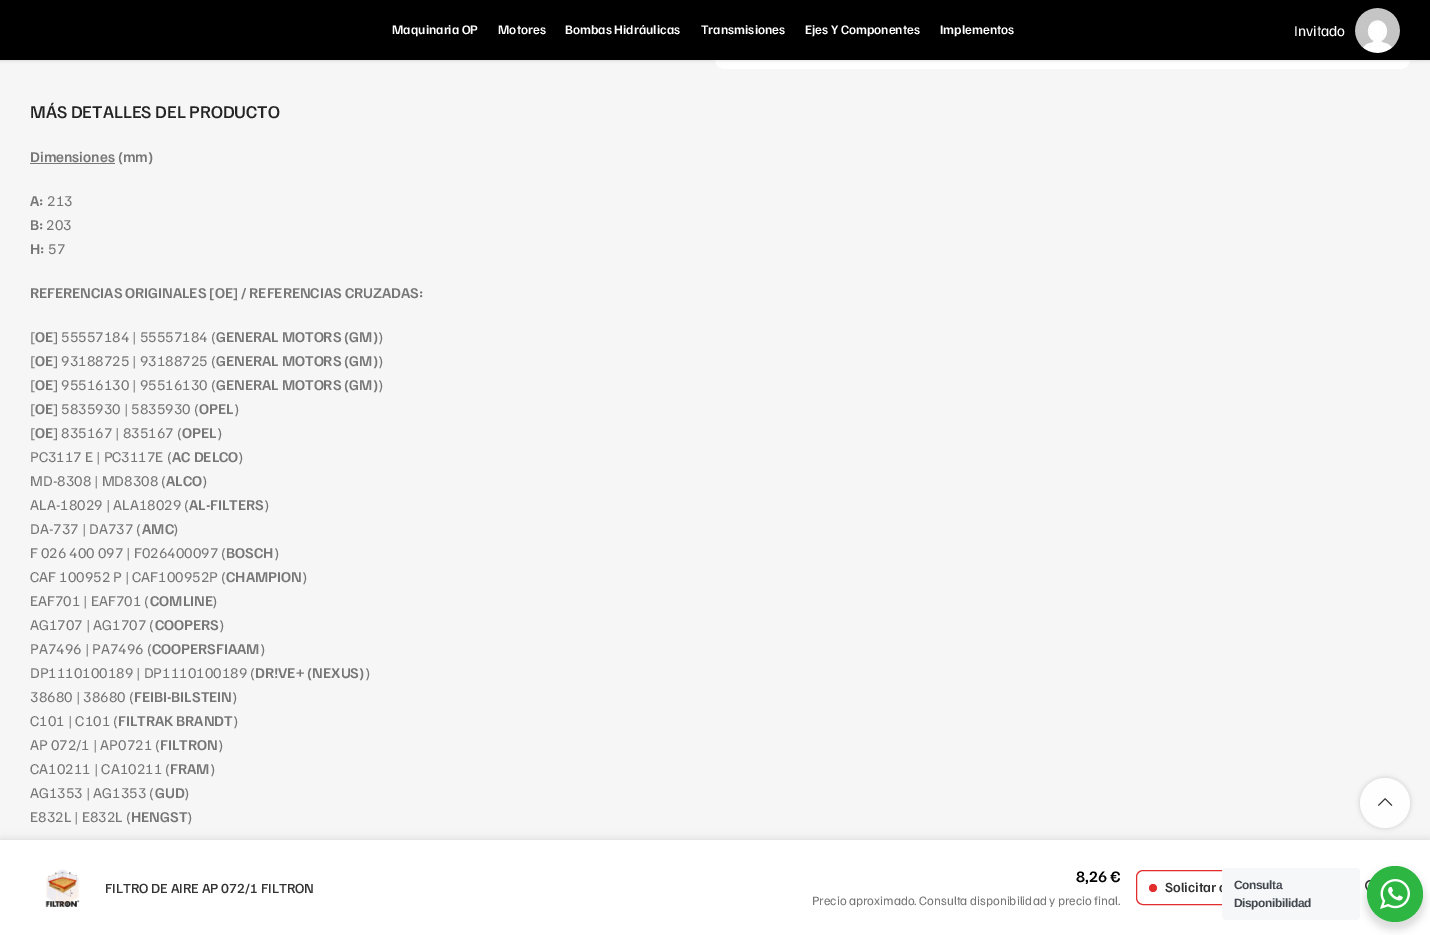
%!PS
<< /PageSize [1430 935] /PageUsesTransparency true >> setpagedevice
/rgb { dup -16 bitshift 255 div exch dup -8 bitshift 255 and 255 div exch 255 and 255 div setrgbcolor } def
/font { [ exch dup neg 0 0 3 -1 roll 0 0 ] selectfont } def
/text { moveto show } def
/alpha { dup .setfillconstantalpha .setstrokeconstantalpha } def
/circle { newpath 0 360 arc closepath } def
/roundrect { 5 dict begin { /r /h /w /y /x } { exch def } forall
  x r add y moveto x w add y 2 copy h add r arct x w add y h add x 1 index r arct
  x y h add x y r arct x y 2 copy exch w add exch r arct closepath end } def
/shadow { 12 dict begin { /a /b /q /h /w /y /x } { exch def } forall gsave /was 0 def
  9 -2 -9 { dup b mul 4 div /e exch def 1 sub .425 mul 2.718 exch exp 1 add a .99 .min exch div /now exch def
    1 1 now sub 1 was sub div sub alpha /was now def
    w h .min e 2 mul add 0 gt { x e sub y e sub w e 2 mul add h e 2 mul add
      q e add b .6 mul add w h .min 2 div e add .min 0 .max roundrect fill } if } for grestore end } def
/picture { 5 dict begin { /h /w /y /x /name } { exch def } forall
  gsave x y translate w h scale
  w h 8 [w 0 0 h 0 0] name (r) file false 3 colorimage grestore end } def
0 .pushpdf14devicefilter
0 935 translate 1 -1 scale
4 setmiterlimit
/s1 { /FamiljenGrotesk-SemiBold 13 font 16#FFFFFF rgb } def
/s2 { /FamiljenGrotesk-Regular 15 font 16#FFFFFF rgb } def
/s3 { /FamiljenGrotesk-Medium 18 font 16#242424 rgb } def
/s4 { /FamiljenGrotesk-SemiBold 15 font 16#777777 rgb } def
/s5 { /FamiljenGrotesk-Regular 15 font 16#777777 rgb } def
/s6 { /FamiljenGrotesk-Medium 14 font 16#333333 rgb } def
/s7 { /FamiljenGrotesk-SemiBold 16 font 16#000000 rgb } def
/s8 { /FamiljenGrotesk-Regular 12.8 font 16#777777 rgb } def
/s9 { /FamiljenGrotesk-SemiBold 14 font 16#333333 rgb } def
16#F6F6F6 rgb
0 0 1430 935 rectfill
16#FFFFFF rgb
715 -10 695 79 10 roundrect fill
16#000000 rgb
0 1 1430 60 0 1.5 0.1 shadow
0 0 1430 60 rectfill
s1
(Maquinaria OP) 392 34 text
(Motores) 498 34 text
(Bombas Hidráulicas) 565 34 text
(Transmisiones) 701 34 text
(Ejes Y Componentes) 805 34 text
(Implementos) 940 34 text
s2
(Invitado) 1294 36 text
(pic1.raw) 1355 8 45 45 picture
s3
(MÁS DETALLES DEL PRODUCTO) 30 118 text
16#777777 rgb
30 163 85 1 rectfill
s4
(Dimensiones \(mm\)) 30 162 text
(A:) 30 206 text
s5
(213) 47 206 text
s4
(B:) 30 230 text
s5
(203) 46 230 text
s4
(H:) 30 254 text
s5
(57) 48 254 text
s4
(REFERENCIAS ORIGINALES [OE] / REFERENCIAS CRUZADAS:) 30 298 text
s5
([) 30 342 text
s4
(OE) 35 342 text
s5
(] 55557184 | 55557184 \() 53 342 text
s4
(GENERAL MOTORS \(GM\)) 216 342 text
s5
(\)) 378 342 text
([) 30 366 text
s4
(OE) 35 366 text
s5
(] 93188725 | 93188725 \() 53 366 text
s4
(GENERAL MOTORS \(GM\)) 216 366 text
s5
(\)) 378 366 text
([) 30 390 text
s4
(OE) 35 390 text
s5
(] 95516130 | 95516130 \() 53 390 text
s4
(GENERAL MOTORS \(GM\)) 216 390 text
s5
(\)) 378 390 text
([) 30 414 text
s4
(OE) 35 414 text
s5
(] 5835930 | 5835930 \() 53 414 text
s4
(OPEL) 199 414 text
s5
(\)) 234 414 text
([) 30 438 text
s4
(OE) 35 438 text
s5
(] 835167 | 835167 \() 53 438 text
s4
(OPEL) 182 438 text
s5
(\)) 217 438 text
(PC3117 E | PC3117E \() 30 462 text
s4
(AC DELCO) 172 462 text
s5
(\)) 238 462 text
(MD-8308 | MD8308 \() 30 486 text
s4
(ALCO) 166 486 text
s5
(\)) 202 486 text
(ALA-18029 | ALA18029 \() 30 510 text
s4
(AL-FILTERS) 189 510 text
s5
(\)) 264 510 text
(DA-737 | DA737 \() 30 534 text
s4
(AMC) 142 534 text
s5
(\)) 173 534 text
(F 026 400 097 | F026400097 \() 30 558 text
s4
(BOSCH) 226 558 text
s5
(\)) 274 558 text
(CAF 100952 P | CAF100952P \() 30 582 text
s4
(CHAMPION) 226 582 text
s5
(\)) 302 582 text
(EAF701 | EAF701 \() 30 606 text
s4
(COMLINE) 150 606 text
s5
(\)) 212 606 text
(AG1707 | AG1707 \() 30 630 text
s4
(COOPERS) 155 630 text
s5
(\)) 219 630 text
(PA7496 | PA7496 \() 30 654 text
s4
(COOPERSFIAAM) 152 654 text
s5
(\)) 260 654 text
(DP1110100189 | DP1110100189 \() 30 678 text
s4
(DR!VE+ \(NEXUS\)) 255 678 text
s5
(\)) 365 678 text
(38680 | 38680 \() 30 702 text
s4
(FEIBI-BILSTEIN) 134 702 text
s5
(\)) 232 702 text
(C101 | C101 \() 30 726 text
s4
(FILTRAK BRANDT) 118 726 text
s5
(\)) 233 726 text
(AP 072/1 | AP0721 \() 30 750 text
s4
(FILTRON) 160 750 text
s5
(\)) 218 750 text
(CA10211 | CA10211 \() 30 774 text
s4
(FRAM) 170 774 text
s5
(\)) 210 774 text
(AG1353 | AG1353 \() 30 798 text
s4
(GUD) 155 798 text
s5
(\)) 184 798 text
(E832L | E832L \() 30 822 text
s4
(HENGST) 131 822 text
s5
(\)) 187 822 text
gsave
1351 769 moveto 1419 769 lineto 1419 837 lineto 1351 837 lineto closepath 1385 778 moveto 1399 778 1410 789 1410 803 curveto 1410 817 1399 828 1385 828 curveto 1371 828 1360 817 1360 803 curveto 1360 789 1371 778 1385 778 curveto closepath eoclip newpath
16#000000 rgb
1360 778 50 50 25 2.5 0.17 shadow
grestore
16#000000 rgb
0 840 1430 95 0 4.5 0.12 shadow
0.9 alpha
16#FFFFFF rgb
1385 803 25 circle fill
1 alpha
(pic2.raw) 1378 798 15 8 picture
0 840 1430 95 rectfill
(pic3.raw) 45 869 35 38 picture
s6
(FILTRO DE AIRE AP 072/1 FILTRON) 105 893 text
s7
(8,26 €) 1076 882 text
s8
(Precio aproximado. Consulta disponibilidad y precio final.) 812 905 text
16#E22D2D rgb
1136.5 870.5 148 34 6.5 roundrect stroke
1153 888 4 circle fill
s9
(Solicitar c) 1165 892 text
(pic4.raw) 1365 879 6 13 picture
16#000000 rgb
1365 870 60 60 30 4 0.14 shadow
16#F5F7F9 rgb
1222 868 138 52 4 roundrect fill
/LiberationSans-Bold 12 font
16#43474E rgb
1234 889 moveto -0.4 0 (Consulta) ashow
1234 907 moveto -0.4 0 (Disponibilidad) ashow
16#2DB742 rgb
1395 894 28 circle fill
(pic5.raw) 1380 879 30 30 picture
.poppdf14devicefilter showpage
